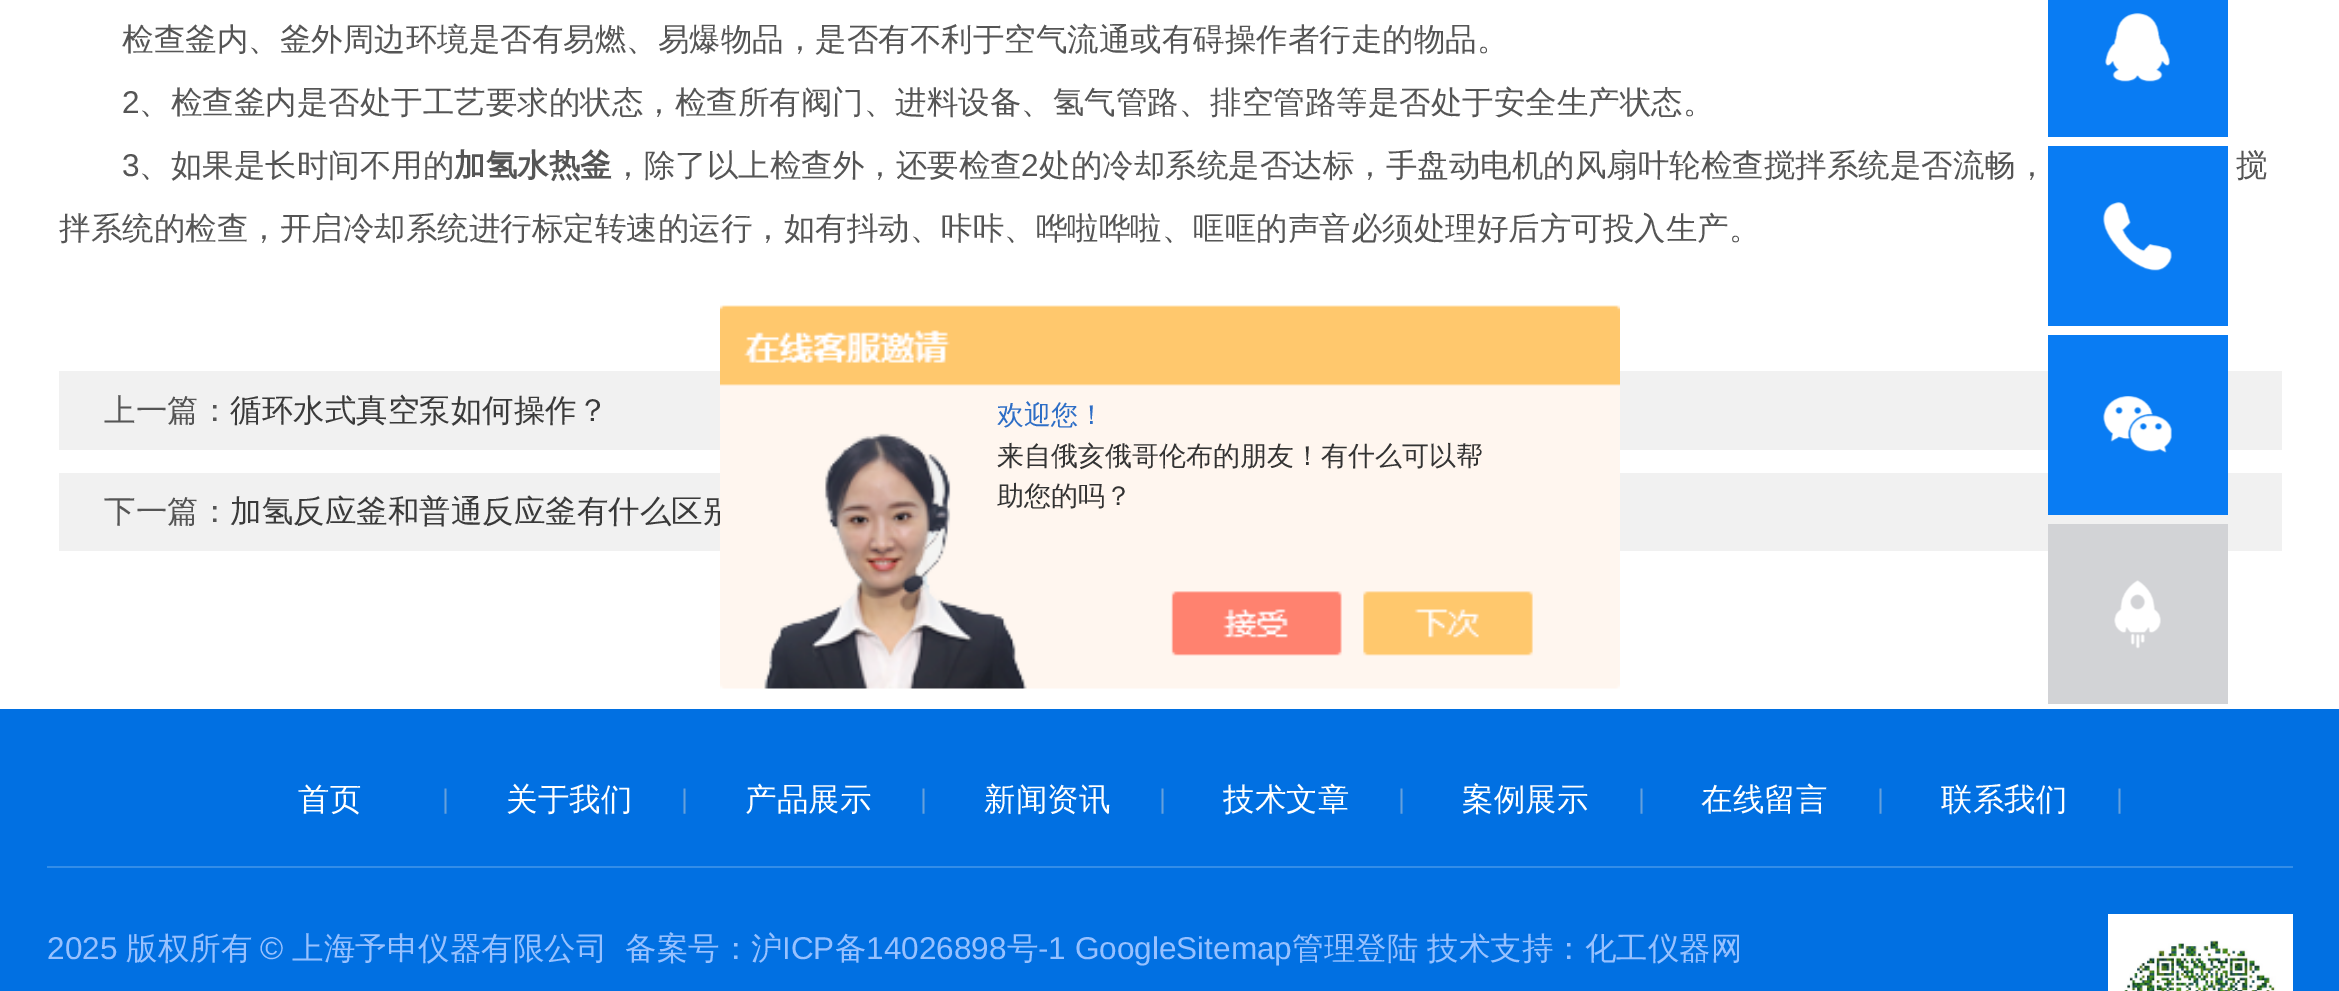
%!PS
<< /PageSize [2339 991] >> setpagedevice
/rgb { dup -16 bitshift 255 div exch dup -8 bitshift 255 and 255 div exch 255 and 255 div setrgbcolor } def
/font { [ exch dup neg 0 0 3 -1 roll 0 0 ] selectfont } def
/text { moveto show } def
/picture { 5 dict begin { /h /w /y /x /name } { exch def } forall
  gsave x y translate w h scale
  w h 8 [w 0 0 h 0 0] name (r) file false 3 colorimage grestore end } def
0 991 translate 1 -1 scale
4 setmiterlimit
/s1 { /WenQuanYiZenHei-Medium 31.5 font 16#555555 rgb } def
/s2 { /LiberationSans-Regular 31.5 font 16#555555 rgb } def
/s3 { /WenQuanYiZenHei-Bold 31.5 font 16#555555 rgb } def
/s4 { /WenQuanYiZenHei-Medium 31.5 font 16#3A3A3A rgb } def
/s5 { /WenQuanYiZenHei-Medium 31.5 font 16#FFFFFF rgb } def
/s6 { /LiberationSans-Regular 27 font 16#65A0DC rgb } def
/s7 { /LiberationSans-Regular 31.5 font 16#97C1FF rgb } def
/s8 { /WenQuanYiZenHei-Medium 31.5 font 16#97C1FF rgb } def
/s9 { /WenQuanYiZenHei-Medium 27 font 16#2E6EC6 rgb } def
/s10 { /WenQuanYiZenHei-Medium 27 font 16#333333 rgb } def
16#FFFFFF rgb
0 0 2339 991 rectfill
16#097CF3 rgb
2048 0 180 137 rectfill
(pic1.raw) 2105 13 65 69 picture
2048 146 180 180 rectfill
(pic2.raw) 2103 202 69 69 picture
16#F1F1F1 rgb
59 371 2223 79 rectfill
59 473 2223 78 rectfill
16#097CF3 rgb
2048 335 180 180 rectfill
(pic3.raw) 2103 396 69 57 picture
16#D2D3D6 rgb
2048 524 180 180 rectfill
(pic4.raw) 2114 580 47 69 picture
s1
(检查釜内、釜外周边环境是否有易燃、易爆物品，是否有不利于空气流通或有碍操作者行走的物品。) 122 50 text
s2
(2) 122 113 text
s1
(、检查釜内是否处于工艺要求的状态，检查所有阀门、进料设备、氢气管路、排空管路等是否处于安全生产状态。) 139 113 text
s2
(3) 122 176 text
s1
(、如果是长时间不用的) 139 176 text
s3
(加氢水热釜) 454 176 text
s1
(，除了以上检查外，还要检查) 612 176 text
s2
(2) 1021 176 text
s1
(处的冷却系统是否达标，手盘动电机的风扇叶轮检查搅拌系统是否流畅，) 1039 176 text
(搅) 2236 176 text
(拌系统的检查，开启冷却系统进行标定转速的运行，如有抖动、咔咔、哗啦哗啦、哐哐的声音必须处理好后方可投入生产。) 59 239 text
(上一篇：) 104 421 text
s4
(循环水式真空泵如何操作？) 230 421 text
s1
(下一篇：) 104 522 text
s4
(加氢反应釜和普通反应釜有什么区别) 230 522 text
16#0170E2 rgb
0 709 2339 282 rectfill
16#338DE8 rgb
47 866 2246 2 rectfill
s5
(首页) 298 810 text
s6
(|) 442 808 text
s5
(关于我们) 506 810 text
s6
(|) 681 808 text
s5
(产品展示) 745 810 text
s6
(|) 920 808 text
s5
(新闻资讯) 984 810 text
s6
(|) 1159 808 text
s5
(技术文章) 1223 810 text
s6
(|) 1398 808 text
s5
(案例展示) 1462 810 text
s6
(|) 1638 808 text
s5
(在线留言) 1701 810 text
s6
(|) 1877 808 text
s5
(联系我们) 1941 810 text
s6
(|) 2116 808 text
s7
(2025) 47 959 text
s8
(版权所有) 126 959 text
s7
(©) 260 959 text
s8
(上海予申仪器有限公司) 292 959 text
(备案号：沪) 625 959 text
s7
(ICP) 782 959 text
s8
(备) 835 959 text
s7
(14026898) 866 959 text
s8
(号) 1007 959 text
s7
(-1 GoogleSitemap) 1038 959 text
s8
(管理登陆) 1292 959 text
(技术支持：化工仪器网) 1427 959 text
16#FFFFFF rgb
2108 914 185 77 rectfill
(pic5.raw) 2124 940 152 51 picture
(pic6.raw) 720 305 900 384 picture
s9
(欢迎您！) 997 424 text
s10
(来自俄亥俄哥伦布的朋友！有什么可以帮) 997 465 text
(助您的吗？) 997 505 text
showpage
